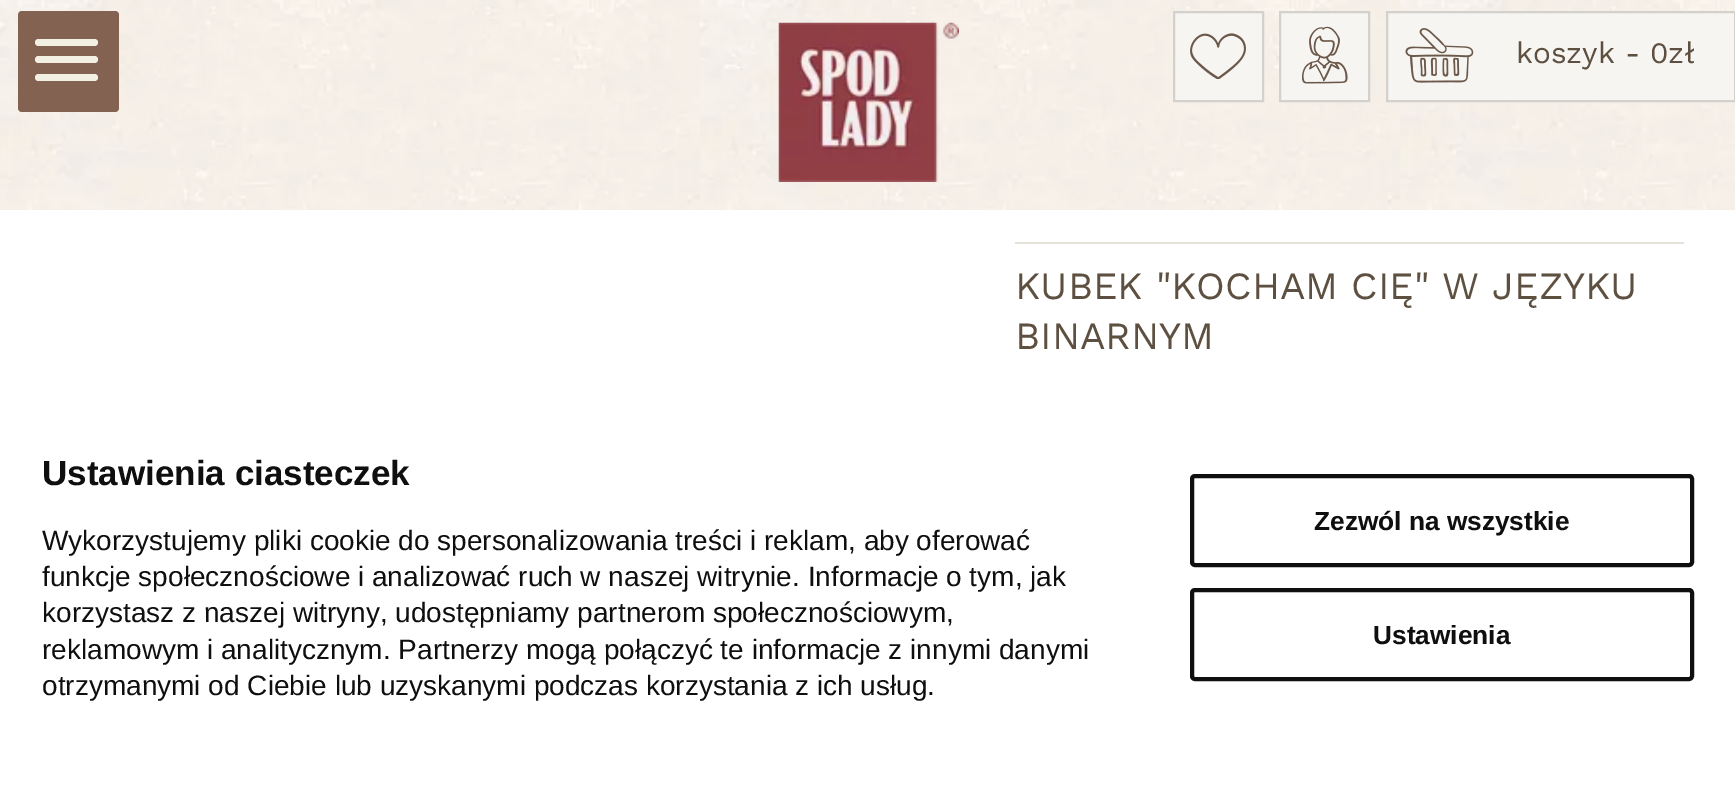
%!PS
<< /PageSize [1735 789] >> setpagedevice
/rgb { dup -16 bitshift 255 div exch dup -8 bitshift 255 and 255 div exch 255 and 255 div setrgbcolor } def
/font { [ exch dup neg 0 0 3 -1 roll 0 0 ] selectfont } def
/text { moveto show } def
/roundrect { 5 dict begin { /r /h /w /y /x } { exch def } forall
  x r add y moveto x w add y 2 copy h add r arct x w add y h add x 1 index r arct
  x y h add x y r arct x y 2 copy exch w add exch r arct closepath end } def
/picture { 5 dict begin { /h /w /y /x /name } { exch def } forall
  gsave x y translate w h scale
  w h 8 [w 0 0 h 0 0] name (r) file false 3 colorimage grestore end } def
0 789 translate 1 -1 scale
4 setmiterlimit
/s1 { /WorkSans-Regular 29.75 font 16#5E5041 rgb } def
/s2 { /WorkSans-Regular 38.5 font 16#5E5041 rgb } def
/s3 { /LiberationSans-Bold 35 font 16#0F0F0F rgb } def
/s4 { /LiberationSans-Regular 28 font 16#0F0F0F rgb } def
/s5 { /LiberationSans-Bold 26.25 font 16#0F0F0F rgb } def
16#FFFFFF rgb
0 0 1735 789 rectfill
(pic1.raw) 0 0 1735 210 picture
16#836252 rgb
18 11 101 101 4 roundrect fill
16#F2EFE3 rgb
35 56 63 7 3.5 roundrect fill
35 39 63 7 3.5 roundrect fill
35 74 63 7 3.5 roundrect fill
(pic2.raw) 778 22 181 160 picture
16#F6F5F1 rgb
1175 13 87 87 rectfill
(pic3.raw) 1190 33 56 46 picture
16#D4D1CC rgb
2 setlinewidth
1174 12 89 89 rectstroke
16#F6F5F1 rgb
1281 13 87 87 rectfill
(pic4.raw) 1302 26 46 58 picture
16#D4D1CC rgb
1280 12 89 89 rectstroke
16#F6F5F1 rgb
1388 13 346 87 rectfill
(pic5.raw) 1405 28 69 55 picture
16#D4D1CC rgb
1387 12 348 89 rectstroke
s1
(koszyk - 0zł) 1516 63 text
16#E4E1D9 rgb
1015 242 669 2 rectfill
s2
(KUBEK "KOCHAM CIĘ" W JĘZYKU) 1015 299 text
(BINARNYM) 1015 349 text
s3
(Ustawienia ciasteczek) 42 485 text
s4
(Wykorzystujemy pliki cookie do spersonalizowania treści i reklam, aby oferować) 42 550 text
(funkcje społecznościowe i analizować ruch w naszej witrynie. Informacje o tym, jak) 42 586 text
(korzystasz z naszej witryny, udostępniamy partnerom społecznościowym,) 42 622 text
(reklamowym i analitycznym. Partnerzy mogą połączyć te informacje z innymi danymi) 42 659 text
(otrzymanymi od Ciebie lub uzyskanymi podczas korzystania z ich usług.) 42 695 text
4 setlinewidth
1192 476 500 89 3 roundrect stroke
s5
(Zezwól na wszystkie) 1314 530 text
1192 590 500 89 3 roundrect stroke
(Ustawienia) 1373 644 text
showpage
